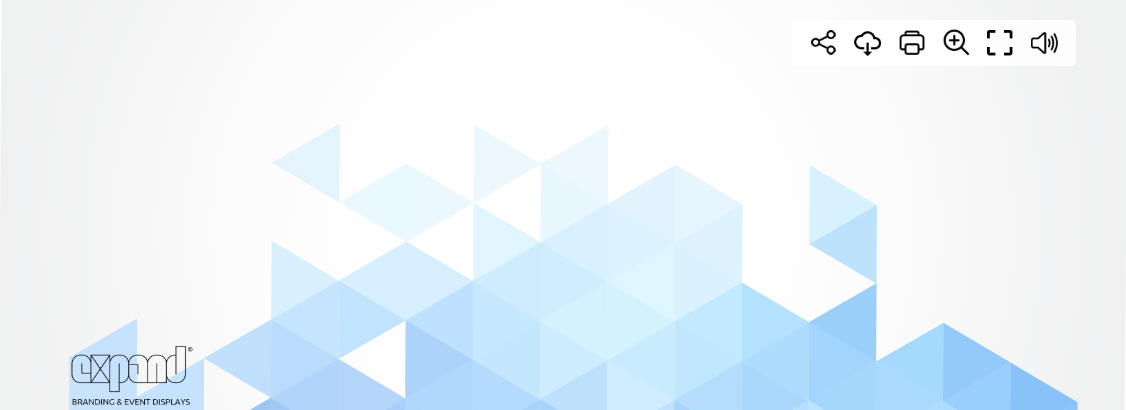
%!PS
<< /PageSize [1126 410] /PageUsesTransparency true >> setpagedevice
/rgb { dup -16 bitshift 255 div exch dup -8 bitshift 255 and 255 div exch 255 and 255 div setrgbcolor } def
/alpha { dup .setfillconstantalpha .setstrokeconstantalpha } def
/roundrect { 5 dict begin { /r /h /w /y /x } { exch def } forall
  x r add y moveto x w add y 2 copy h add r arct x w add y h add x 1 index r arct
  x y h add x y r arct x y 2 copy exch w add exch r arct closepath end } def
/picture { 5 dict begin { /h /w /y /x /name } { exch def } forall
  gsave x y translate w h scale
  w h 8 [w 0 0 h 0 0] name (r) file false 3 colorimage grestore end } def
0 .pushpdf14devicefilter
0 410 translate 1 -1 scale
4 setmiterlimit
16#FFFFFF rgb
0 0 1126 410 rectfill
(pic1.raw) 0 0 1126 410 picture
0.85 alpha
792 20 284 46 5 roundrect fill
1 alpha
(pic2.raw) 811 30 25 25 picture
(pic3.raw) 854 31 28 26 picture
(pic4.raw) 899 30 26 25 picture
(pic5.raw) 943 29 27 27 picture
(pic6.raw) 987 30 26 26 picture
(pic7.raw) 1031 32 27 22 picture
(pic8.raw) 71 345 122 61 picture
.poppdf14devicefilter showpage
